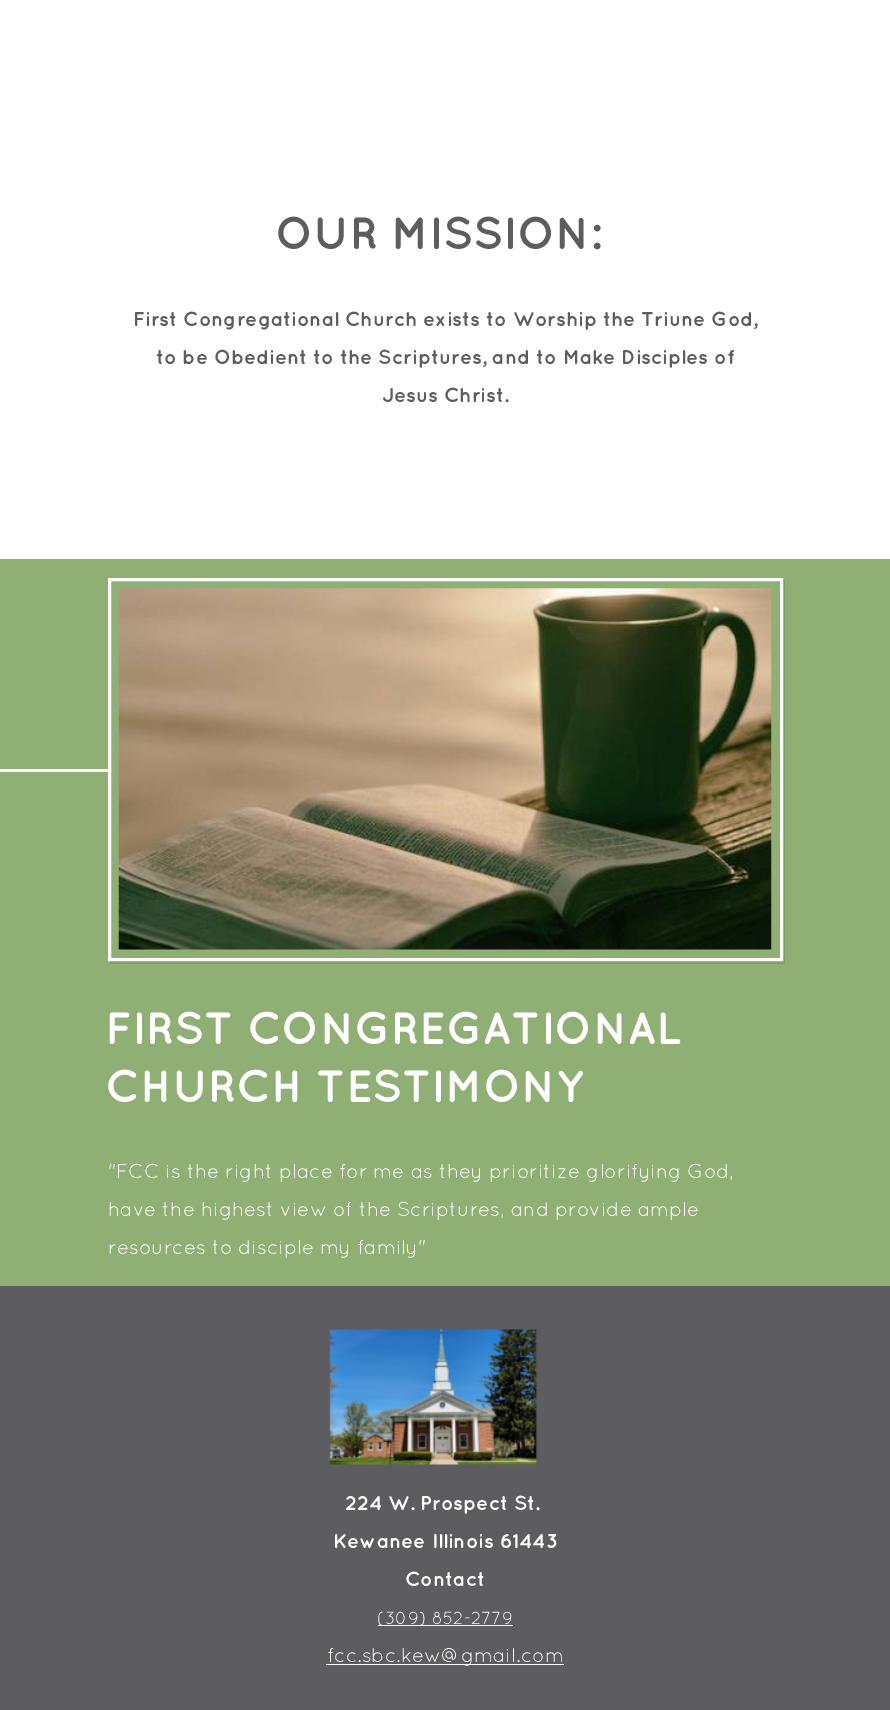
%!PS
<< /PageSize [890 1710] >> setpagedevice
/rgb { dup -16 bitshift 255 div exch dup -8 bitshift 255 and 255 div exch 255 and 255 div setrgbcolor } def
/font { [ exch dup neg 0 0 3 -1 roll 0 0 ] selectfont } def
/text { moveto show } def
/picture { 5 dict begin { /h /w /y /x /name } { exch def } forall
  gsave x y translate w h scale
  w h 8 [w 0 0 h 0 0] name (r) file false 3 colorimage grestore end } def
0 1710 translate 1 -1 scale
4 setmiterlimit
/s1 { /Quicksand-Bold 45 font 16#5D5C61 rgb } def
/s2 { /Quicksand-Bold 20 font 16#5D5C61 rgb } def
/s3 { /Quicksand-Bold 45 font 16#FFFFFF rgb } def
/s4 { /Quicksand-Regular 20 font 16#FFFFFF rgb } def
/s5 { /Quicksand-Bold 20 font 16#FFFFFF rgb } def
/s6 { /Quicksand-Regular 17.5 font 16#FAF8F5 rgb } def
/s7 { /Quicksand-Regular 20 font 16#FAF8F5 rgb } def
16#5D5C61 rgb
0 0 890 1710 rectfill
16#FFFFFF rgb
0 0 890 559 rectfill
s1
(OUR MISSION:) 275 249 text
s2
(First Congregational Church exists to Worship the Triune God,) 133 326 text
(to be Obedient to the Scriptures, and to Make Disciples of) 156 364 text
(Jesus Christ.) 382 402 text
16#90AF74 rgb
0 559 890 727 rectfill
16#829E68 rgb
110 961 moveto 110 964 lineto 785 964 lineto 785 580 lineto 782 580 lineto 782 961 lineto closepath fill
16#FFFFFF rgb
3 setlinewidth
109.5 579.5 672 380 rectstroke
0 769 110 3 rectfill
(pic1.raw) 118 588 654 362 picture
s3
(FIRST CONGREGATIONAL) 105 1044 text
(CHURCH TESTIMONY) 105 1102 text
s4
("FCC is the right place for me as they prioritize glorifying God,) 108 1178 text
(have the highest view of the Scriptures, and provide ample) 108 1216 text
(resources to disciple my family") 108 1254 text
(pic2.raw) 329 1329 209 136 picture
s5
(224 W. Prospect St.) 345 1510 text
(Kewanee Illinois 61443) 333 1548 text
(Contact) 405 1586 text
16#FAF8F5 rgb
378 1625 135 1 rectfill
s6
(\(309\) 852-2779) 377 1624 text
16#F7F6F4 rgb
326 1664 238 1 rectfill
s7
(fcc.sbc.kew@gmail.com) 327 1662 text
showpage
